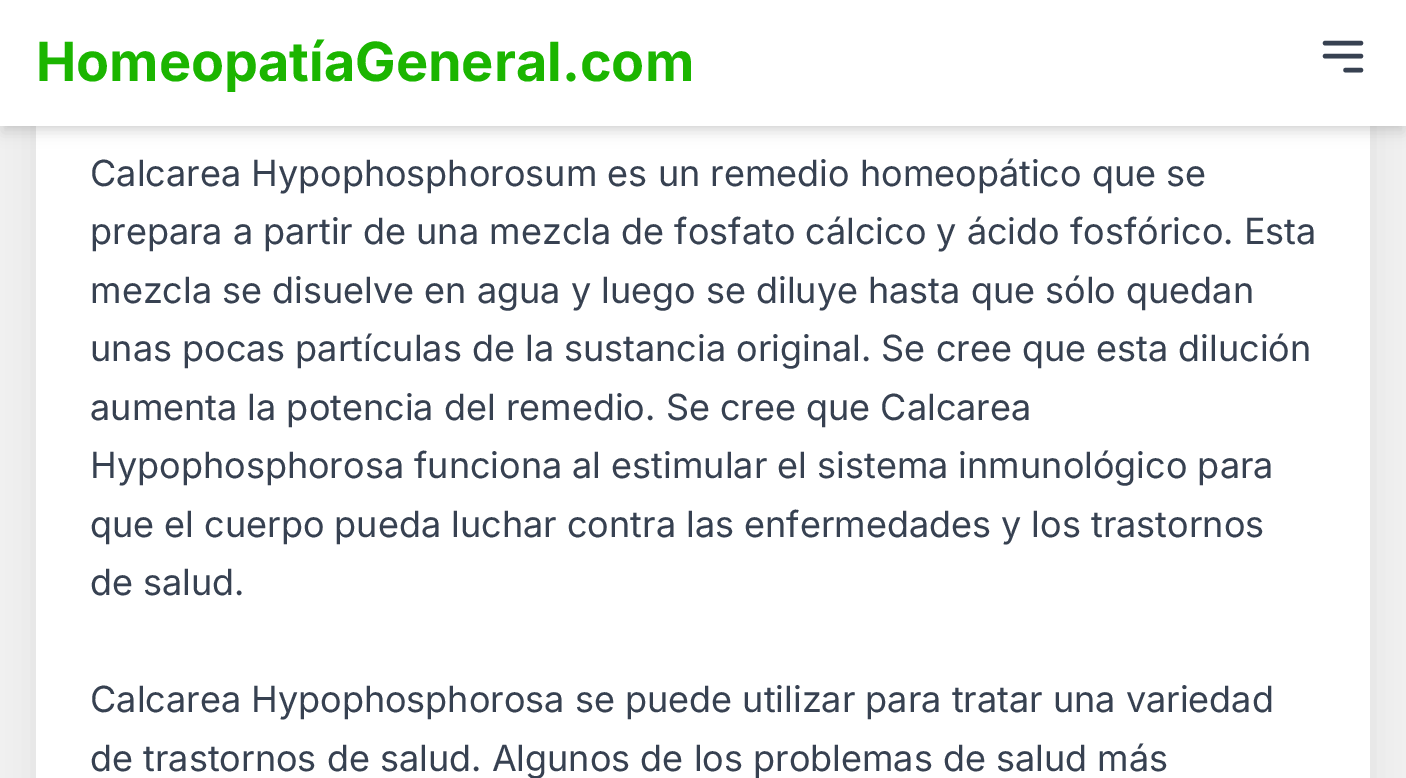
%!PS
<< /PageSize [1406 778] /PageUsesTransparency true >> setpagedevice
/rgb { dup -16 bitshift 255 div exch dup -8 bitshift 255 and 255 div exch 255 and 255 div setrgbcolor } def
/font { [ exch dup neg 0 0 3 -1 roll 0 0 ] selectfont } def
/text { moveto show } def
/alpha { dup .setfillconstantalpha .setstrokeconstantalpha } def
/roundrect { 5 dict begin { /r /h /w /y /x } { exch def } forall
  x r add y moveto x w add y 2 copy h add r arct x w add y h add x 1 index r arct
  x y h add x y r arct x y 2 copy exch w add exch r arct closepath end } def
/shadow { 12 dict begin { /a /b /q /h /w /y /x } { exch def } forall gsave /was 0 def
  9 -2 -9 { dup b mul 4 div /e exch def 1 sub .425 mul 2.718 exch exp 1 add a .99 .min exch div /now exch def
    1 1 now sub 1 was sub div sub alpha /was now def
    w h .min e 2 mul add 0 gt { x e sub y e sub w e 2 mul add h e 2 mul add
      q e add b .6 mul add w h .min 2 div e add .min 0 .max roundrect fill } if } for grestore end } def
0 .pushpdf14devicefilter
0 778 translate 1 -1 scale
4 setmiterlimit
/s1 { /Inter-Bold 54 font 16#1BB500 rgb } def
/s2 { /Inter-Regular 36 font 16#374151 rgb } def
16#F0F0F0 rgb
0 0 1406 778 rectfill
16#000000 rgb
43 -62 1321 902 11 17 0.1 shadow
16#FFFFFF rgb
36 126 1334 652 rectfill
16#000000 rgb
5 9 1397 117 0 4.5 0.1 shadow
2 11 1402 122 0 7 0.1 shadow
16#FFFFFF rgb
0 0 1406 126 rectfill
s1
(HomeopatíaGeneral.com) 36 81 text
16#374151 rgb
4.5 setlinewidth
1 setlinecap
1 setlinejoin
1325 43 moveto 1361 43 lineto 1325 56 moveto 1361 56 lineto 1345.5 70 moveto 1361 70 lineto stroke
s2
(Calcarea Hypophosphorosum es un remedio homeopático que se) 90 186 text
(prepara a partir de una mezcla de fosfato cálcico y ácido fosfórico. Esta) 90 244 text
(mezcla se disuelve en agua y luego se diluye hasta que sólo quedan) 90 303 text
(unas pocas partículas de la sustancia original. Se cree que esta dilución) 90 361 text
(aumenta la potencia del remedio. Se cree que Calcarea) 90 420 text
(Hypophosphorosa funciona al estimular el sistema inmunológico para) 90 478 text
(que el cuerpo pueda luchar contra las enfermedades y los trastornos) 90 537 text
(de salud.) 90 595 text
(Calcarea Hypophosphorosa se puede utilizar para tratar una variedad) 90 712 text
(de trastornos de salud. Algunos de los problemas de salud más) 90 771 text
.poppdf14devicefilter showpage
